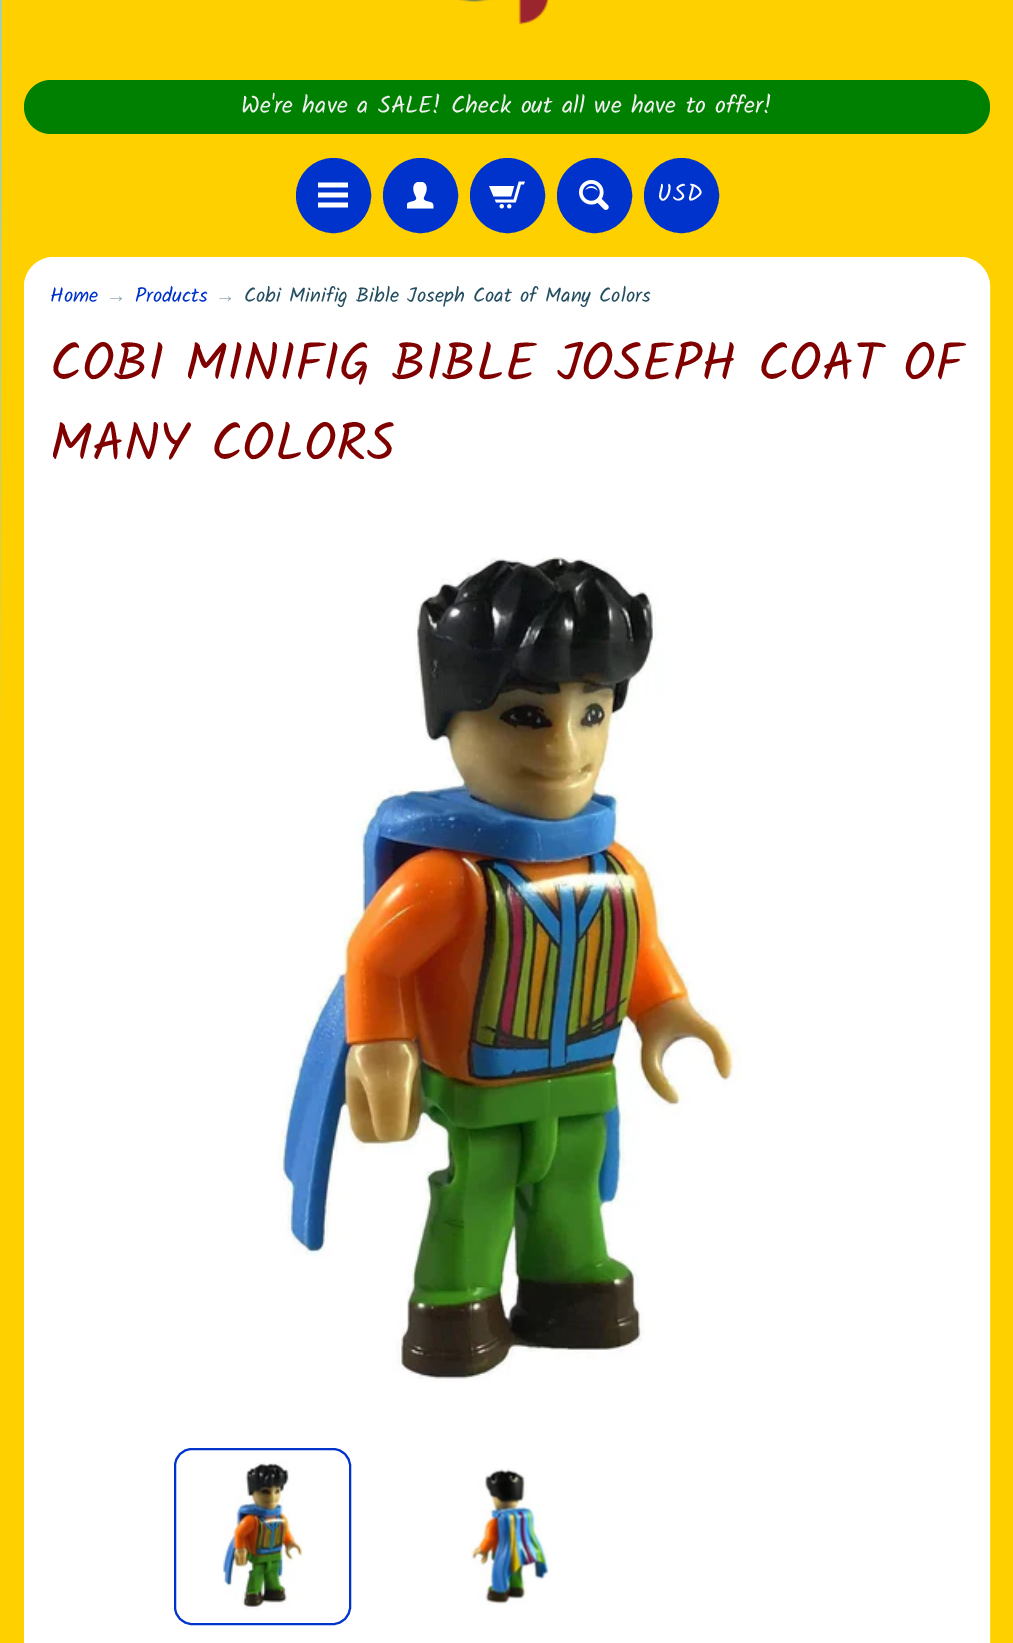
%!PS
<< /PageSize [1013 1643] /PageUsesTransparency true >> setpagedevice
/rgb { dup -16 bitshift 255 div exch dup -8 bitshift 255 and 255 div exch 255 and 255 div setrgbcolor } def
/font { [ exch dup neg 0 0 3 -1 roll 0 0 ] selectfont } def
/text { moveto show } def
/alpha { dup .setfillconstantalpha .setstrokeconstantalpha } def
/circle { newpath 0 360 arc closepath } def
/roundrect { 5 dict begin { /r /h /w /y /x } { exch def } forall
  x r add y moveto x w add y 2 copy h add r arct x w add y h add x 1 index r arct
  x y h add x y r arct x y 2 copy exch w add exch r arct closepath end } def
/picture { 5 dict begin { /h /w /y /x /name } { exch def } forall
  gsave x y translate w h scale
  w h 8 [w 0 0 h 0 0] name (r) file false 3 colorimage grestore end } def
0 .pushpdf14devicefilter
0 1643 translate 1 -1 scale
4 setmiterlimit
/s1 { /Kalam-Regular 24 font 16#EEEEEE rgb } def
/s2 { /Kalam-Regular 20.4 font 16#0033CC rgb } def
/s3 { /LiberationSerif-Regular 20.4 font 16#91A6B0 rgb } def
/s4 { /Kalam-Regular 20.4 font 16#234D61 rgb } def
/s5 { /Kalam-Regular 52.75 font 16#800000 rgb } def
16#FED000 rgb
0 0 1013 1643 rectfill
(pic1.raw) 0 0 2 746 picture
(pic2.raw) 458 0 91 25 picture
16#008000 rgb
24 80 966 54 27 roundrect fill
s1
(We're have a SALE! Check out all we have to offer!) 241 113 text
16#0033CC rgb
333.5 195.5 35 circle gsave fill grestore
5 setlinewidth
stroke
(pic3.raw) 318 182 30 26 picture
420.5 195.5 35 circle gsave fill grestore
stroke
(pic4.raw) 407 182 27 27 picture
507.5 195.5 35 circle gsave fill grestore
stroke
(pic5.raw) 489 181 36 28 picture
594.5 195.5 35 circle gsave fill grestore
stroke
(pic6.raw) 579 180 30 30 picture
681.5 195.5 35 circle gsave fill grestore
stroke
16#FFFFFF rgb
657 201 moveto 1.5 0 (USD) ashow
24 257 966 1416 30 roundrect fill
0.7 alpha
2 setlinewidth
25 258 964 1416 29 roundrect stroke
1 alpha
s2
(Home) 50 302 text
s3
(→) 106 302 text
s2
(Products) 135 302 text
s3
(→) 215 302 text
s4
(Cobi Minifig Bible Joseph Coat of Many Colors) 244 302 text
s5
(COBI MINIFIG BIBLE JOSEPH COAT OF) 50 380 text
(MANY COLORS) 50 460 text
(pic7.raw) 276 556 465 826 picture
16#0033CC rgb
175 1449 175 175 17 roundrect stroke
(pic8.raw) 222 1461 82 149 picture
(pic9.raw) 470 1468 82 138 picture
.poppdf14devicefilter showpage
